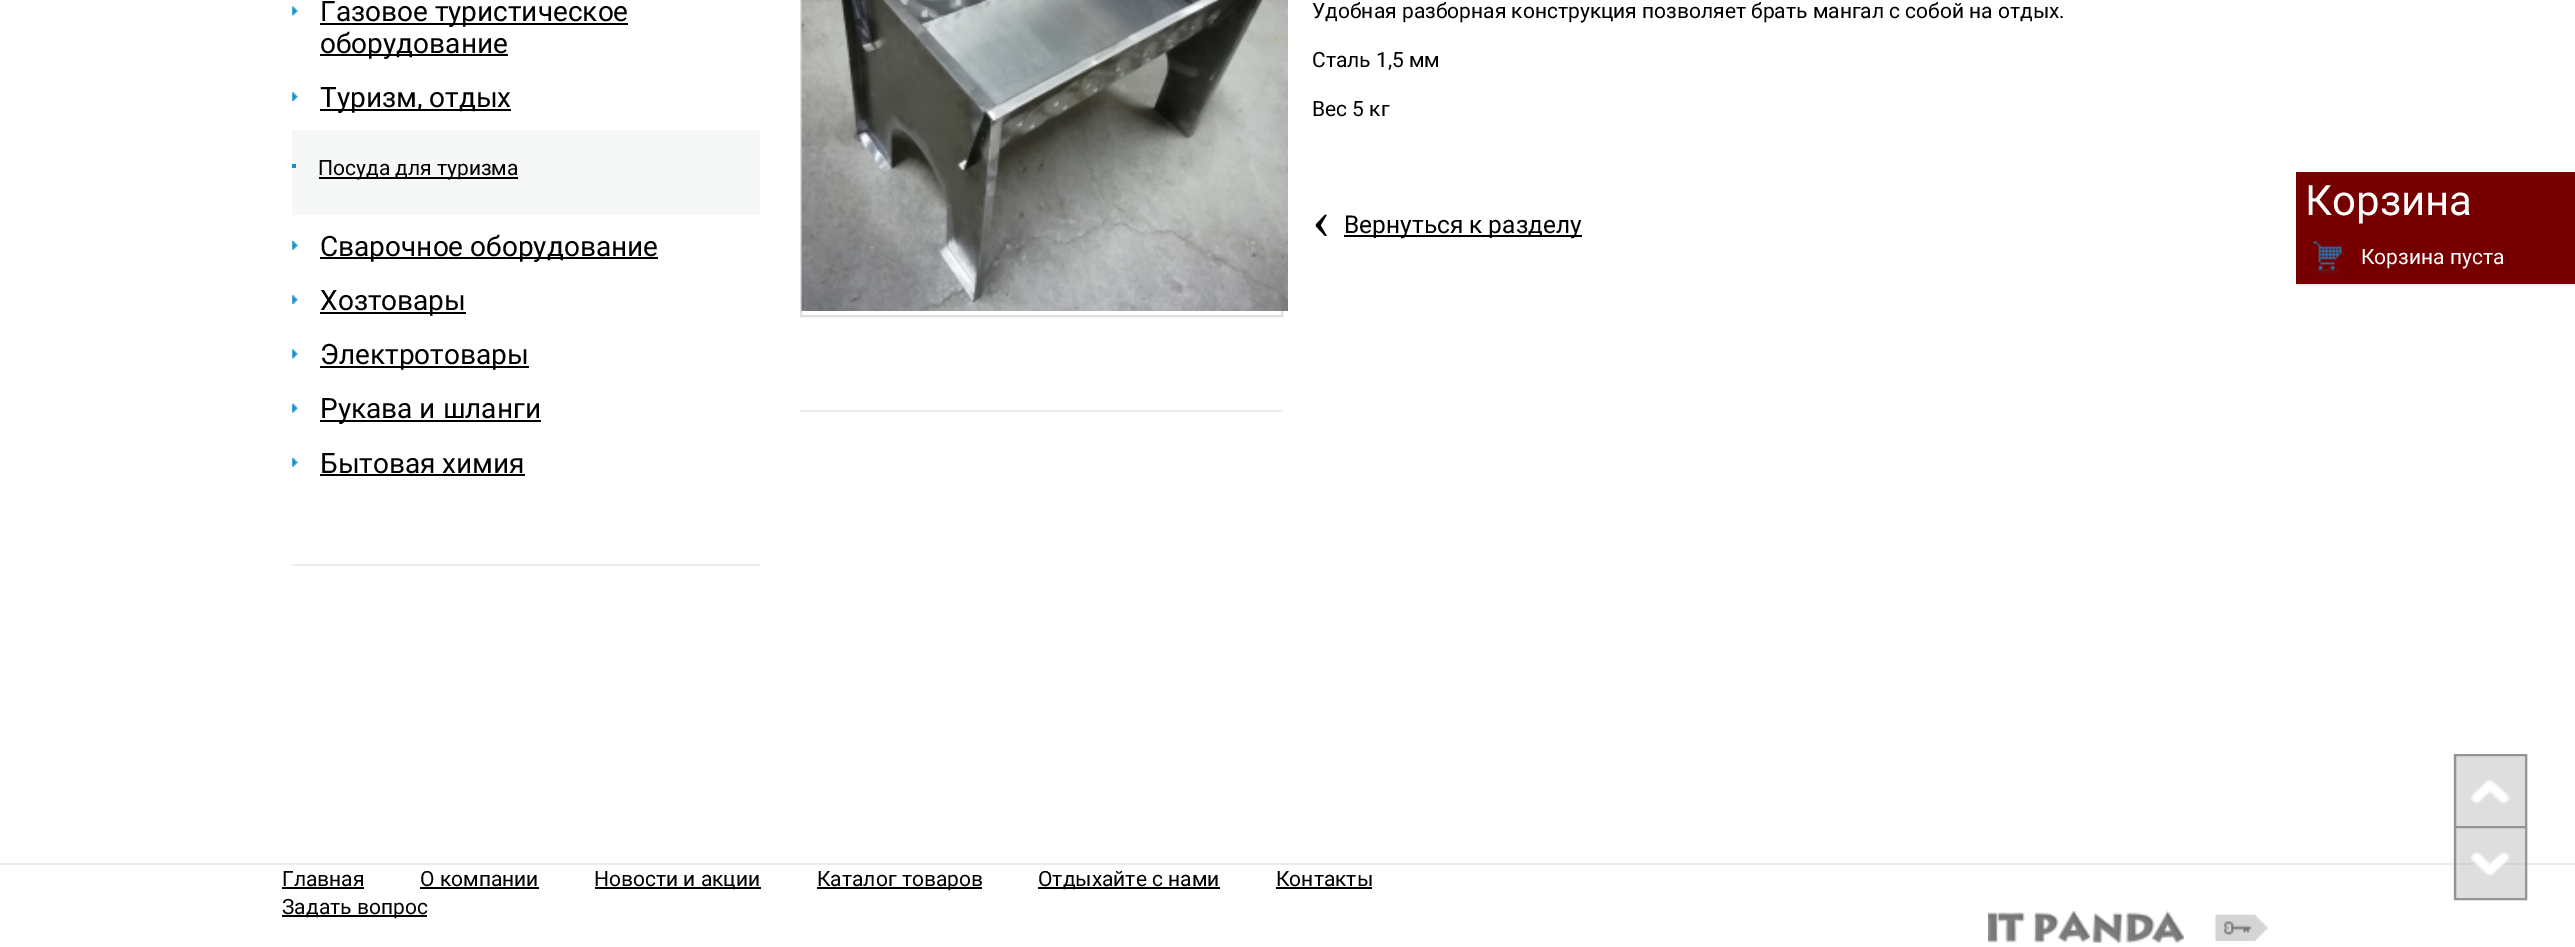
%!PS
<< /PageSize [2575 947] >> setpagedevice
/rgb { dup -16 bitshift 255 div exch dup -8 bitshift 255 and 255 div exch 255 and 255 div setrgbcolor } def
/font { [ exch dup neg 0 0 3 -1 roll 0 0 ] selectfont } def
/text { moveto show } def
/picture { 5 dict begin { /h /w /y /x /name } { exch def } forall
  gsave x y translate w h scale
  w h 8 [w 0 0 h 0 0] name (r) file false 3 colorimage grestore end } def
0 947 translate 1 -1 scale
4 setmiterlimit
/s1 { /Roboto-Regular 28 font 16#000000 rgb } def
/s2 { /Roboto-Regular 21 font 16#000000 rgb } def
/s3 { /LiberationSerif-Regular 56 font 16#000000 rgb } def
/s4 { /Roboto-Regular 24.5 font 16#000000 rgb } def
/s5 { /Roboto-Regular 42 font 16#FFFFFF rgb } def
/s6 { /Roboto-Regular 21 font 16#FFFFFF rgb } def
16#FFFFFF rgb
0 0 2575 947 rectfill
16#EDEDED rgb
292 564 468 2 rectfill
(pic1.raw) 292 6 6 10 picture
16#000000 rgb
320 23 308 2 rectfill
s1
(Газовое туристическое) 320 21 text
320 54 188 2 rectfill
(оборудование) 320 53 text
(pic2.raw) 292 92 6 9 picture
320 109 191 2 rectfill
(Туризм, отдых) 320 107 text
16#F6F7F7 rgb
292 130 468 85 rectfill
16#188FCD rgb
292 164 4 4 rectfill
16#000000 rgb
319 177 199 2 rectfill
s2
(Посуда для туризма) 318 175 text
(pic3.raw) 292 241 6 9 picture
320 257 338 2 rectfill
s1
(Сварочное оборудование) 320 256 text
(pic2.raw) 292 295 6 9 picture
320 312 146 2 rectfill
(Хозтовары) 320 310 text
(pic1.raw) 292 349 6 10 picture
320 366 209 2 rectfill
(Электротовары) 320 364 text
(pic4.raw) 292 403 6 10 picture
320 420 221 2 rectfill
(Рукава и шланги) 320 418 text
(pic3.raw) 292 458 6 9 picture
(Бытовая химия) 320 473 text
320 474 205 2 rectfill
16#DEDEDE rgb
2 setlinewidth
801 -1 481 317 rectstroke
(pic5.raw) 801 0 487 311 picture
16#EDEDED rgb
800 410 483 2 rectfill
s2
(Удобная разборная конструкция позволяет брать мангал с собой на отдых.) 1312 18 text
(Сталь 1,5 мм) 1312 67 text
(Вес 5 кг) 1312 116 text
s3
(‹) 1312 238 text
1344 235 238 2 rectfill
s4
(Вернуться к разделу) 1344 233 text
16#760000 rgb
2296 172 279 112 rectfill
16#EDEDED rgb
2296 284 279 2 rectfill
s5
(Корзина) 2305 215 text
(pic6.raw) 2313 241 29 33 picture
s6
(Корзина пуста) 2361 264 text
16#ECECEC rgb
0 863 2575 2 rectfill
s2
(Главная) 282 886 text
282 887 82 2 rectfill
(О компании) 420 886 text
420 887 119 2 rectfill
595 887 166 2 rectfill
(Новости и акции) 594 886 text
817 887 165 2 rectfill
(Каталог товаров) 817 886 text
1038 887 182 2 rectfill
(Отдыхайте с нами) 1038 886 text
(Контакты) 1276 886 text
1276 887 96 2 rectfill
282 915 145 2 rectfill
(Задать вопрос) 282 914 text
(pic7.raw) 1988 911 196 32 picture
(pic8.raw) 2215 914 53 27 picture
(pic9.raw) 2453 754 75 74 picture
16#949494 rgb
2455 755 71 72 rectstroke
(pic10.raw) 2453 826 75 74 picture
2455 827 71 72 rectstroke
showpage
